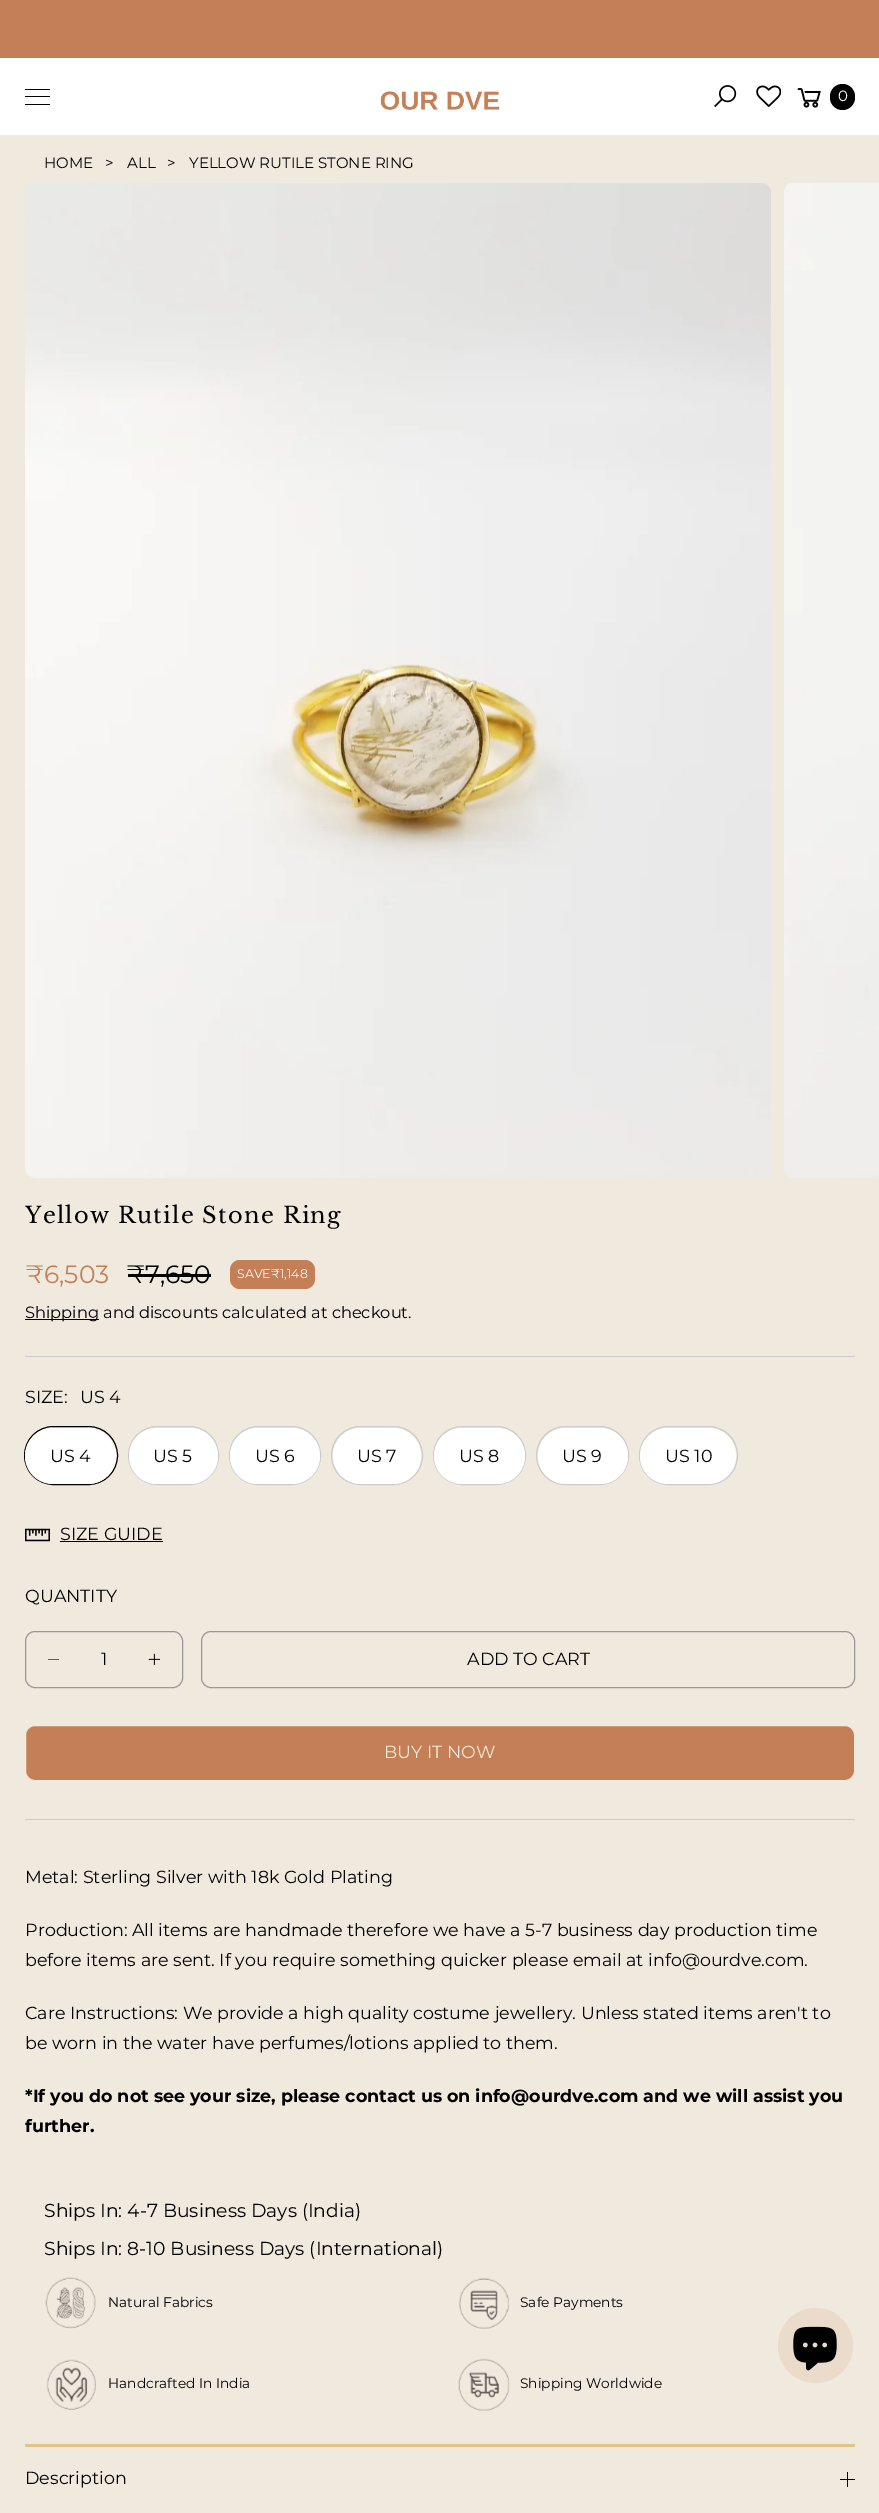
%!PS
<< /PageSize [879 2513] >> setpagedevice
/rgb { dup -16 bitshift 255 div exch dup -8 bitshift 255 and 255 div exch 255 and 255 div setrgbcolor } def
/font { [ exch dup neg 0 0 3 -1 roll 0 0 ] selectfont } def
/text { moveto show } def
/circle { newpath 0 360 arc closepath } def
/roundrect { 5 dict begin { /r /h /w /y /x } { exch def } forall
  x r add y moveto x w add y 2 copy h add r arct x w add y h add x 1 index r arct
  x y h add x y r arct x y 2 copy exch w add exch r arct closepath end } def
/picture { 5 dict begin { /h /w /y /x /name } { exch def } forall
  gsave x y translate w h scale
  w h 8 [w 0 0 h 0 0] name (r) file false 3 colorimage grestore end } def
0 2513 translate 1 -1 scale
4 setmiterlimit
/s1 { /Montserrat-Regular 15 font 16#FFFFFF rgb } def
/s2 { /Montserrat-Regular 15 font 16#000000 rgb } def
/s3 { /Montserrat-Regular 25 font 16#C47F56 rgb } def
/s4 { /Montserrat-Regular 25 font 16#000000 rgb } def
/s5 { /Montserrat-Regular 12.5 font 16#FFFFFF rgb } def
/s6 { /Montserrat-Regular 16.25 font 16#000000 rgb } def
/s7 { /Montserrat-Regular 17.5 font 16#000000 rgb } def
/s8 { /Montserrat-Regular 17.5 font 16#F0EADE rgb } def
/s9 { /Montserrat-Bold 17.5 font 16#000000 rgb } def
/s10 { /Montserrat-Regular 18.75 font 16#000000 rgb } def
/s11 { /Montserrat-Regular 13.75 font 16#000000 rgb } def
16#FFFFFF rgb
0 0 879 2513 rectfill
16#C47F56 rgb
0 0 879 58 rectfill
16#000000 rgb
25 89 25 1 0.5 roundrect fill
25 96 25 1 0.5 roundrect fill
25 104 25 1 0.5 roundrect fill
(pic1.raw) 380 91 120 19 picture
(pic2.raw) 714 85 23 23 picture
(pic3.raw) 756 85 25 22 picture
(pic4.raw) 797 88 24 20 picture
830 84 25 26 12.5 roundrect fill
s1
(0) 838 101 text
16#F0EADE rgb
0 135 879 2378 rectfill
s2
(HOME) 44 168 text
(>) 105 168 text
(ALL) 127 168 text
(>) 167 168 text
(YELLOW RUTILE STONE RING) 189 168 text
(pic5.raw) 25 183 746 995 picture
(pic6.raw) 784 183 95 995 picture
/LibreBaskerville-Regular 22.5 font
25 1223 moveto 1.25 0 (Yellow Rutile Stone Ring) ashow
16#CCCCCC rgb
25 1356 830 1 rectfill
s3
(₹6,503) 26 1283 text
s4
(₹7,650) 127 1283 text
128 1274 83 3 rectfill
16#C47F56 rgb
230 1260 85 29 10 roundrect fill
s5
(SAVE₹1,148) 237 1278 text
16#000000 rgb
25 1319 74 1 rectfill
s6
(Shipping and discounts calculated at checkout.) 25 1318 text
s7
(SIZE:) 25 1403 text
(US 4) 80 1403 text
24.5 1426.5 93 58 29 roundrect stroke
16#FFFFFF rgb
25 1428 91 56 28 roundrect fill
s7
(US 4) 50 1462 text
16#CCCCCC rgb
128.5 1426.5 90 58 29 roundrect stroke
16#FFFFFF rgb
129 1428 89 56 28 roundrect fill
s7
(US 5) 153 1462 text
16#CCCCCC rgb
229.5 1426.5 91 58 29 roundrect stroke
16#FFFFFF rgb
230 1428 90 56 28 roundrect fill
s7
(US 6) 255 1462 text
16#CCCCCC rgb
331.5 1426.5 91 58 29 roundrect stroke
16#FFFFFF rgb
333 1428 88 56 28 roundrect fill
s7
(US 7) 357 1462 text
16#CCCCCC rgb
433.5 1426.5 92 58 29 roundrect stroke
16#FFFFFF rgb
434 1428 91 56 28 roundrect fill
s7
(US 8) 459 1462 text
16#CCCCCC rgb
536.5 1426.5 92 58 29 roundrect stroke
16#FFFFFF rgb
538 1428 90 56 28 roundrect fill
s7
(US 9) 562 1462 text
16#CCCCCC rgb
639.5 1426.5 98 58 29 roundrect stroke
16#FFFFFF rgb
640 1428 96 56 28 roundrect fill
s7
(US 10) 665 1462 text
(pic7.raw) 25 1528 25 14 picture
(SIZE GUIDE) 60 1540 text
60 1541 103 1 rectfill
16#CCCCCC rgb
25 1819 830 1 rectfill
s7
(QUANTITY) 25 1602 text
16#999999 rgb
25.5 1631.5 157 56 9.5 roundrect stroke
16#605E59 rgb
48 1659 11 1 rectfill
s7
(1) 101 1665 text
(pic8.raw) 148 1653 12 12 picture
16#999999 rgb
201.5 1631.5 653 56 9.5 roundrect stroke
s7
(ADD TO CART) 467 1665 text
16#C47F56 rgb
25.5 1725.5 829 55 9.5 roundrect gsave fill grestore
16#F0EADE rgb
stroke
(BUY IT NOW) 384 1758 text
s7
(Metal: Sterling Silver with 18k Gold Plating) 25 1883 text
(Production: All items are handmade therefore we have a 5-7 business day production time) 25 1936 text
(before items are sent. If you require something quicker please email at info@ourdve.com.) 25 1966 text
(Care Instructions: We provide a high quality costume jewellery. Unless stated items aren't to) 25 2019 text
(be worn in the water have perfumes/lotions applied to them.) 25 2049 text
s9
(*If you do not see your size, please contact us on info@ourdve.com and we will assist you) 25 2102 text
(further.) 25 2132 text
16#E2C48B rgb
25 2444 830 3 rectfill
s10
(Ships In: 4-7 Business Days \(India\)) 44 2217 text
(Ships In: 8-10 Business Days \(International\)) 44 2255 text
(pic9.raw) 45 2277 51 52 picture
s11
(Natural Fabrics) 108 2307 text
(pic10.raw) 458 2277 51 52 picture
(Safe Payments) 520 2307 text
(pic11.raw) 46 2359 50 51 picture
(Handcrafted In India) 108 2388 text
(pic12.raw) 458 2358 52 53 picture
(Shipping Worldwide) 520 2388 text
s7
(Description) 25 2484 text
847 2472 1 15 rectfill
840 2479 15 1 rectfill
16#EBDBCB rgb
815.5 2345.5 37.5 circle fill
(pic13.raw) 793 2326 44 45 picture
showpage
